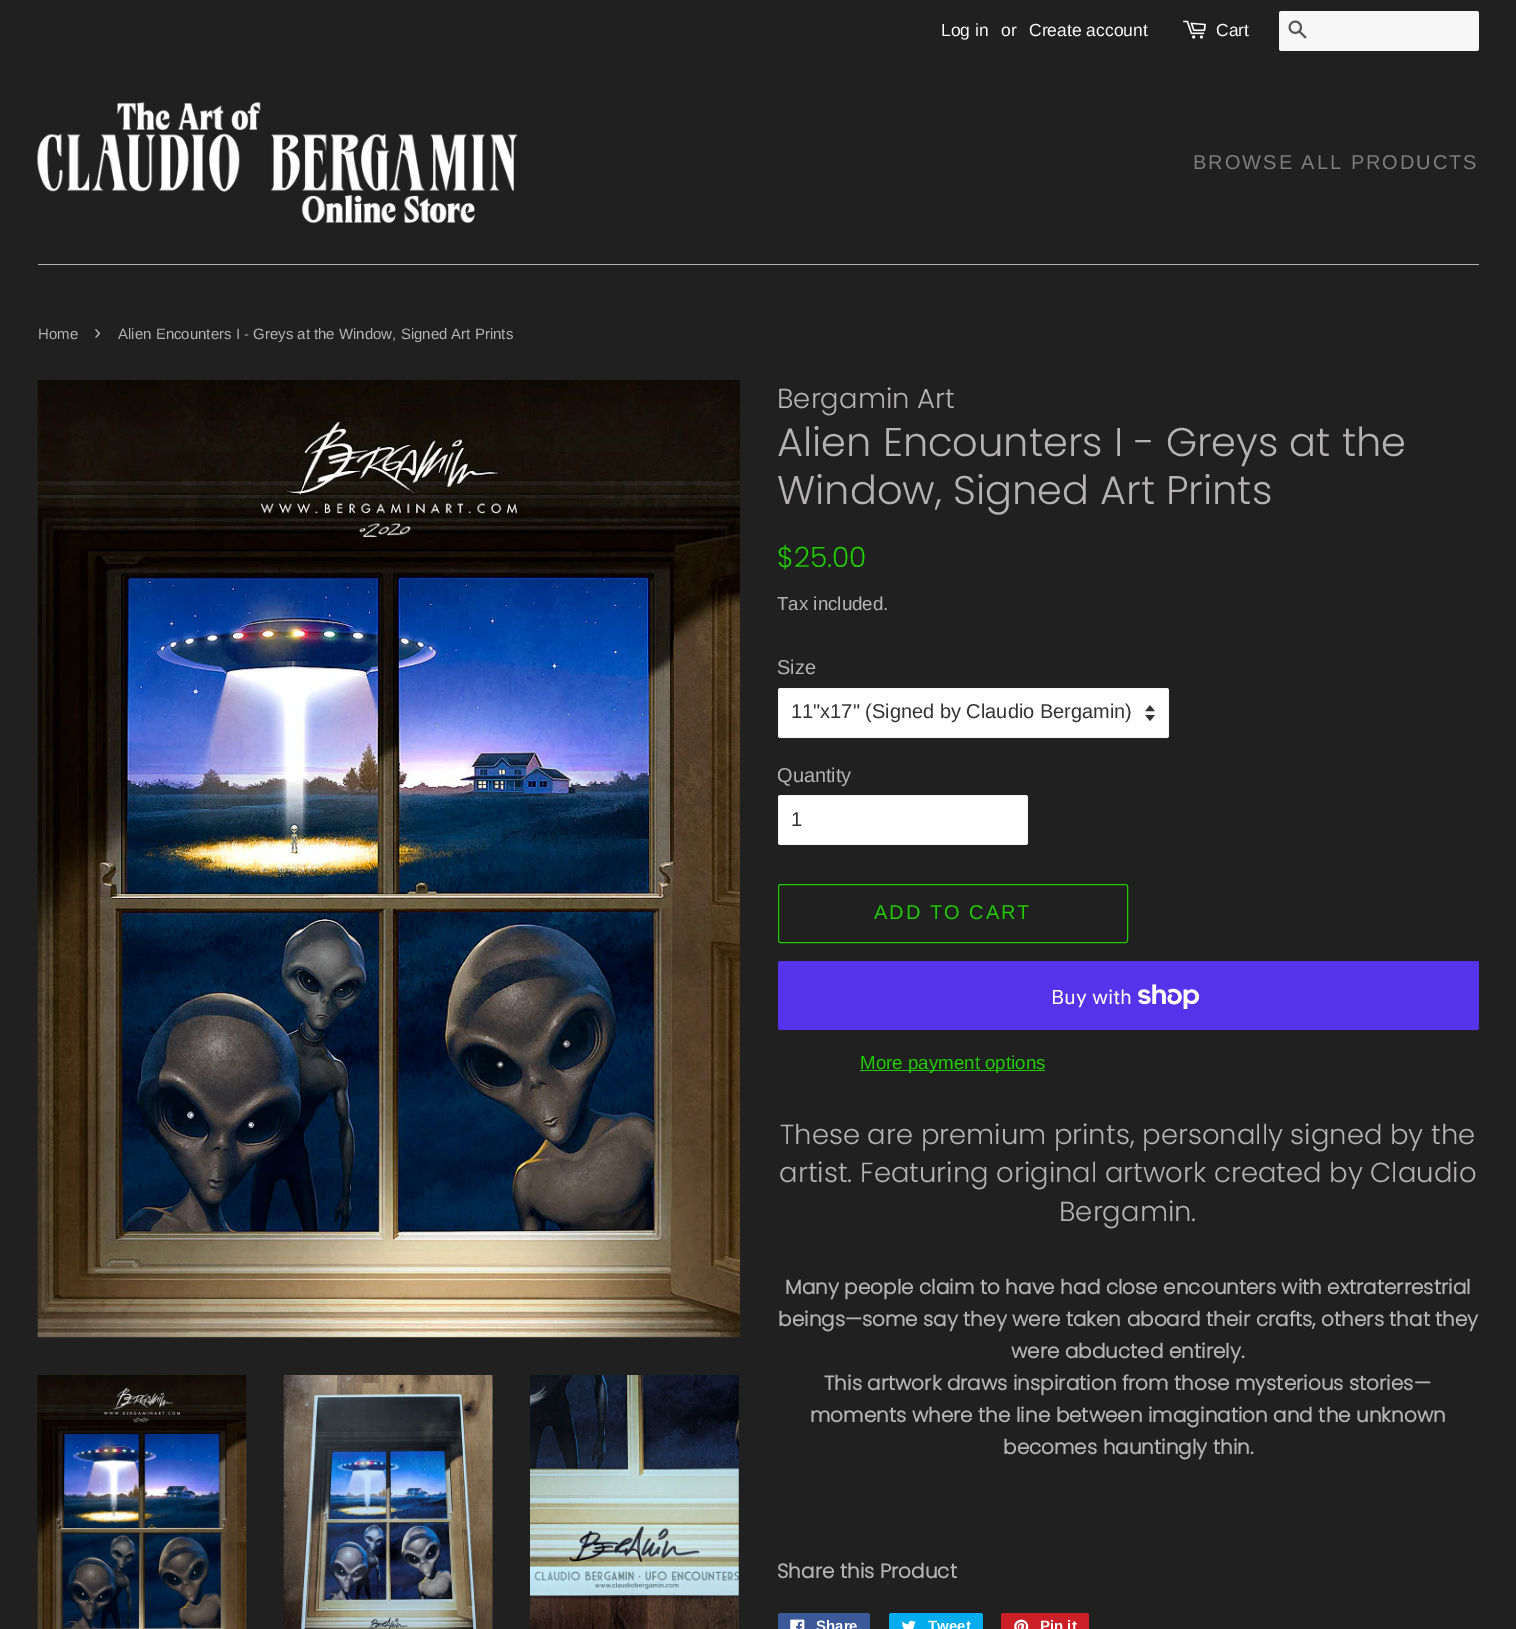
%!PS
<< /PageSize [1516 1629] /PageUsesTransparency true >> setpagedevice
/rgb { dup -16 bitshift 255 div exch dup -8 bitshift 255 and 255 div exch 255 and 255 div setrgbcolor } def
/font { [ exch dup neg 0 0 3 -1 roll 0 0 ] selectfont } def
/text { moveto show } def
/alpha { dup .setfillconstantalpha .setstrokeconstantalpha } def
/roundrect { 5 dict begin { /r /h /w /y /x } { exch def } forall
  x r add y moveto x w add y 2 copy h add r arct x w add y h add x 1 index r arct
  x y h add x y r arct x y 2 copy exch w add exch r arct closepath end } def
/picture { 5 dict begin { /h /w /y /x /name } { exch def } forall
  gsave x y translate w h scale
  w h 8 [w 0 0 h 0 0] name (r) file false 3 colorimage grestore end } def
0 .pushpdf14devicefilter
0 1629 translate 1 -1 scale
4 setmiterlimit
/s1 { /LiberationSans-Regular 17.5 font 16#FFFFFF rgb } def
/s2 { /LiberationSans-Regular 15 font 16#B4B2B2 rgb } def
/s3 { /LiberationSans-Regular 21 font 16#B4B2B2 rgb } def
/s4 { /Poppins-Light 27.5 font 16#B4B2B2 rgb } def
/s5 { /Poppins-Light 40 font 16#B4B2B2 rgb } def
/s6 { /Poppins-Light 28 font 16#21C900 rgb } def
/s7 { /LiberationSans-Regular 18.75 font 16#B4B2B2 rgb } def
/s8 { /LiberationSans-Regular 20 font 16#B4B2B2 rgb } def
/s9 { /LiberationSans-Regular 20 font 16#333333 rgb } def
/s10 { /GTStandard-Regular 20 font 16#FFFFFF rgb } def
/s11 { /LiberationSans-Regular 18.75 font 16#21C900 rgb } def
/s12 { /Poppins-Bold 20 font 16#B4B2B2 rgb } def
/s13 { /LiberationSans-Bold 15 font 16#FFFFFF rgb } def
16#202020 rgb
0 0 1516 1629 rectfill
s1
(Log in) 941 36 text
(or) 1001 36 text
(Create account) 1029 36 text
(pic1.raw) 1183 20 23 19 picture
(Cart) 1216 36 text
1279 11 200 40 2.5 roundrect fill
0.03 alpha
16#000000 rgb
1279 11 200 40 rectfill
1 alpha
(pic2.raw) 1288 20 19 19 picture
16#B4B2B2 rgb
38 264 1441 1 rectfill
(pic3.raw) 37 102 481 121 picture
/LiberationSans-Regular 20 font
16#7E7E7E rgb
1193 169 moveto 2 0 (BROWSE ALL PRODUCTS) ashow
s2
(Home) 38 339 text
s3
(›) 94 339 text
s2
(Alien Encounters I - Greys at the Window, Signed Art Prints) 118 339 text
(pic4.raw) 37 380 703 958 picture
(pic5.raw) 37 1375 210 254 picture
(pic6.raw) 283 1375 210 254 picture
(pic7.raw) 530 1375 209 254 picture
s4
(Bergamin Art) 777 408 text
s5
(Alien Encounters I - Greys at the) 777 456 text
(Window, Signed Art Prints) 777 504 text
s6
($25.00) 777 567 text
s7
(Tax included.) 777 610 text
s8
(Size) 777 674 text
16#FFFFFF rgb
778 688 391 50 2.5 roundrect fill
(pic8.raw) 1145 705 10 16 picture
0.15 alpha
16#B4B2B2 rgb
778.5 688.5 390 49 2 roundrect stroke
1 alpha
s9
(11"x17" \(Signed by Claudio Bergamin\)) 791 718 text
s8
(Quantity) 777 782 text
16#FFFFFF rgb
778 795 250 50 2.5 roundrect fill
0.15 alpha
16#B4B2B2 rgb
778.5 795.5 249 49 2 roundrect stroke
1 alpha
s9
(1) 791 826 text
16#21C900 rgb
778.5 884.5 349 58 2 roundrect stroke
874 919 moveto 2 0 (ADD TO CART) ashow
16#5433EB rgb
778 961 701 69 2.5 roundrect fill
s10
(Buy with) 1051 1004 text
(pic9.raw) 1138 984 62 25 picture
16#21C900 rgb
860 1070 185 1 rectfill
s11
(More payment options) 860 1069 text
s4
(These are premium prints, personally signed by the) 780 1144 text
(artist. Featuring original artwork created by Claudio) 779 1182 text
(Bergamin.) 1059 1221 text
s12
(Many people claim to have had close encounters with extraterrestrial) 785 1294 text
(beings—some say they were taken aboard their crafts, others that they) 778 1326 text
(were abducted entirely.) 1011 1358 text
(This artwork draws inspiration from those mysterious stories—) 824 1390 text
(moments where the line between imagination and the unknown) 810 1422 text
(becomes hauntingly thin.) 1003 1454 text
(Share this Product) 777 1578 text
16#3B5998 rgb
778 1613 92 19 2.5 roundrect fill
(pic10.raw) 790 1619 15 10 picture
s13
(Share) 816 1631 text
16#00ACED rgb
889 1613 94 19 2.5 roundrect fill
(pic11.raw) 902 1620 14 9 picture
s13
(Tweet) 928 1631 text
16#CB2027 rgb
1001 1613 88 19 2.5 roundrect fill
(pic12.raw) 1014 1619 15 10 picture
s13
(Pin it) 1040 1631 text
.poppdf14devicefilter showpage
